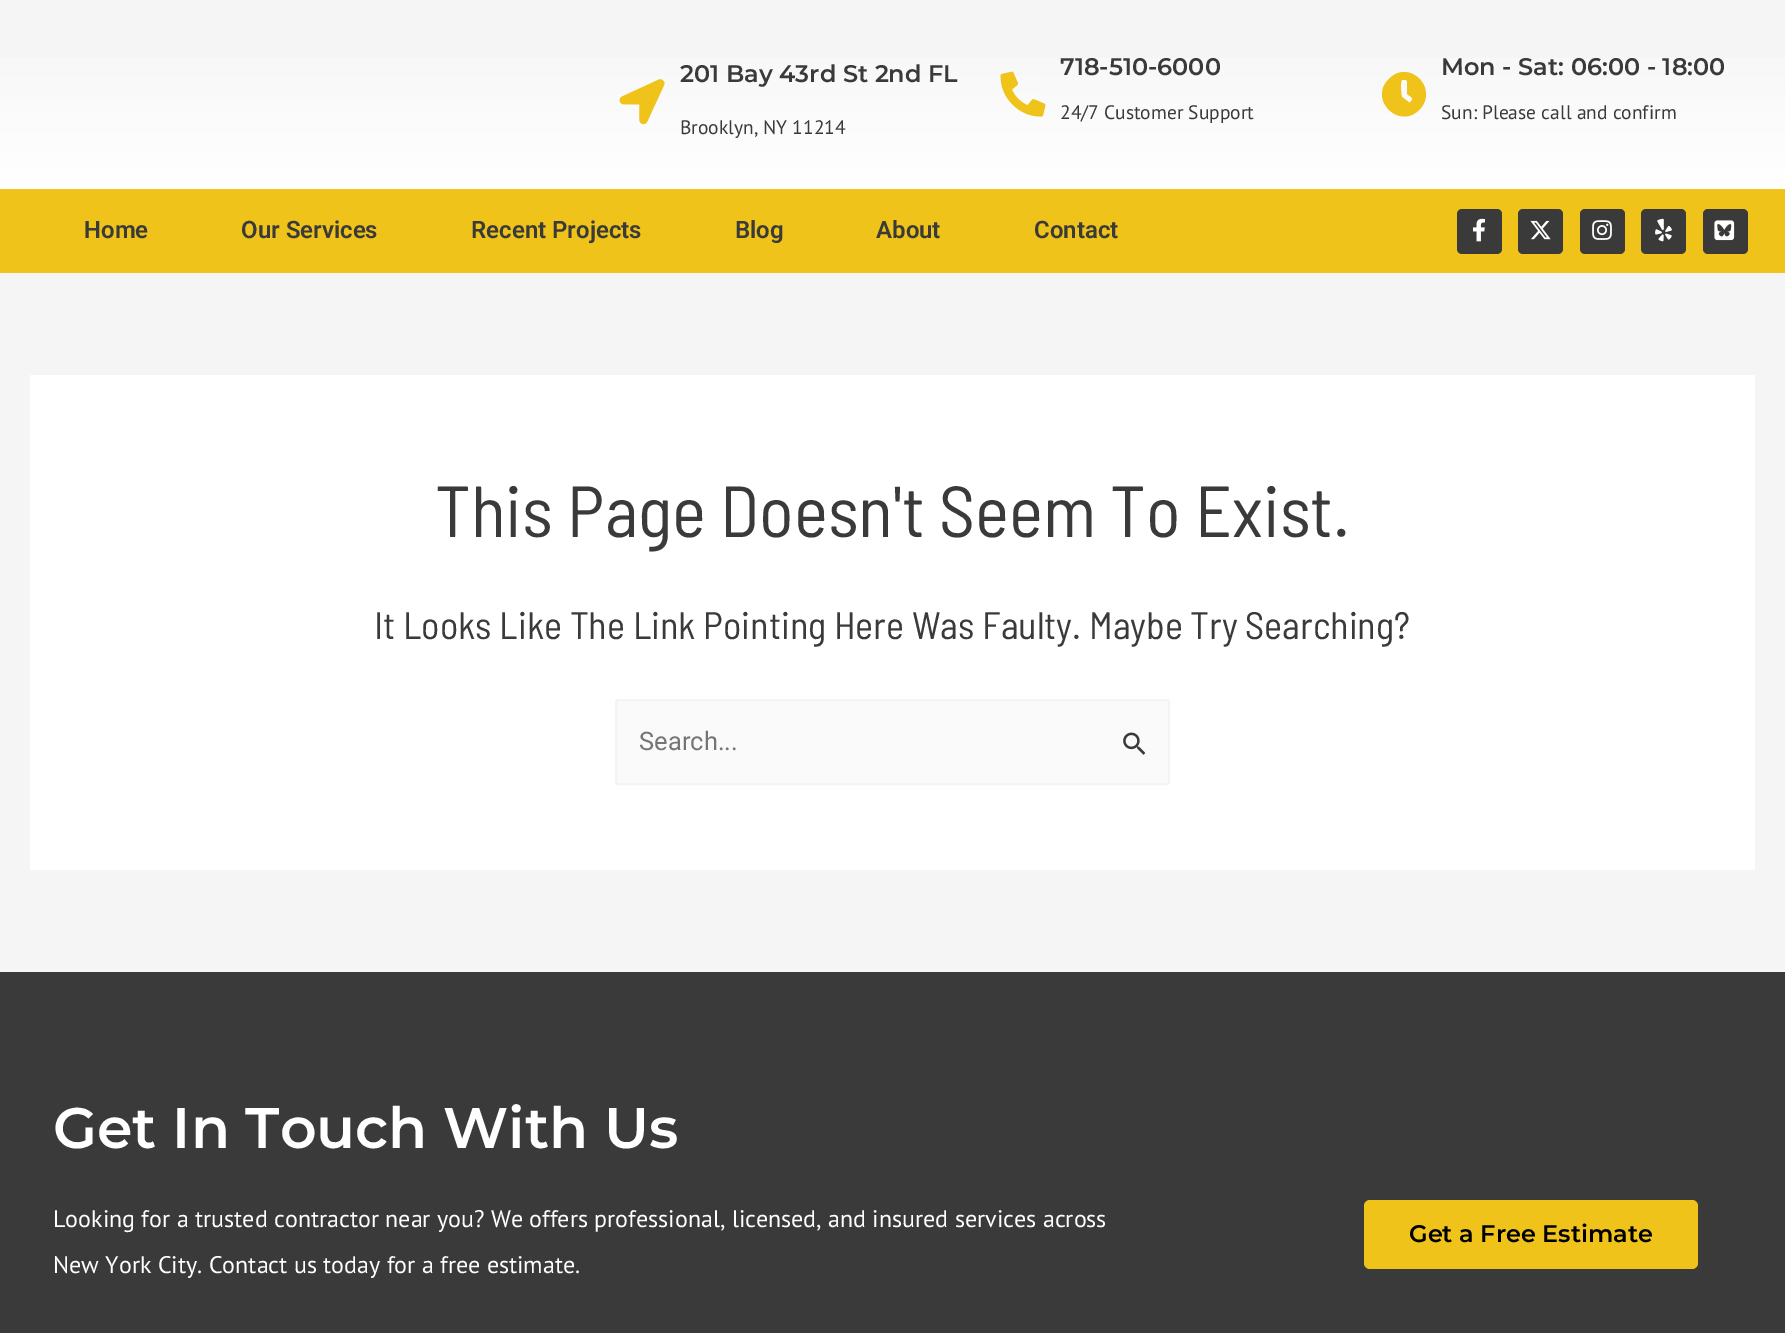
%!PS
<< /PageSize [1785 1333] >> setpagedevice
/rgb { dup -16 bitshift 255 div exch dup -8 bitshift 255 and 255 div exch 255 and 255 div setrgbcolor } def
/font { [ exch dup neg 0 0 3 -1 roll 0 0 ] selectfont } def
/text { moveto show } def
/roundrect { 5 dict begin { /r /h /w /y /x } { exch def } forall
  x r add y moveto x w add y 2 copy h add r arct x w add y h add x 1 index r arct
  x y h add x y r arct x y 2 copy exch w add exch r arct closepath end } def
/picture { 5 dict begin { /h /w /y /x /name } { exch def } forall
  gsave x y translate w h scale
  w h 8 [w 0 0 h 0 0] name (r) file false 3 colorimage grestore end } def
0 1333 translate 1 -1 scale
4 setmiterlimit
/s1 { /Montserrat-SemiBold 24 font 16#3A3A3A rgb } def
/s2 { /PTSans-Regular 19.5 font 16#3A3A3A rgb } def
/s3 { /Roboto-SemiBold 24 font 16#3A3A3A rgb } def
/s4 { /BarlowSemiCondensed-Regular 72 font 16#3A3A3A rgb } def
/s5 { /BarlowSemiCondensed-Regular 38.25 font 16#3A3A3A rgb } def
/s6 { /Roboto-Regular 25.5 font 16#757575 rgb } def
/s7 { /Montserrat-SemiBold 57 font 16#FFFFFF rgb } def
/s8 { /PTSans-Regular 24 font 16#FFFFFF rgb } def
/s9 { /Montserrat-SemiBold 24 font 16#000000 rgb } def
16#F5F5F5 rgb
0 0 1785 1333 rectfill
gsave 0 58 moveto 1785 58 lineto 1785 189 lineto 0 189 lineto closepath clip newpath
<< /ShadingType 2 /ColorSpace /DeviceRGB /Coords [893 15 893 189] /Extend [true true] /Function << /FunctionType 2 /Domain [0 1] /C0 [0.961 0.961 0.961] /C1 [1 1 1] /N 1 >> >> shfill grestore
(pic1.raw) 619 79 46 46 picture
s1
(201 Bay 43rd St 2nd FL) 680 82 text
s2
(Brooklyn, NY 11214) 680 134 text
(pic2.raw) 1000 71 46 46 picture
s1
(718-510-6000) 1060 75 text
s2
(24/7 Customer Support) 1060 119 text
16#EFC319 rgb
1389 79 moveto 1409 58 1440 89 1419 110 curveto 1399 130 1368 99 1389 79 curveto closepath 1412 100 moveto 1414 98 1408 95 1407 94 curveto 1407 81 lineto 1406 79 1403 80 1402 80 curveto 1400 81 1401 95 1402 97 curveto 1406 100 lineto 1410 103 1409 104 1412 100 curveto closepath fill
s1
(Mon - Sat: 06:00 - 18:00) 1441 75 text
s2
(Sun: Please call and confirm) 1441 119 text
16#EFC319 rgb
0 189 1785 84 rectfill
s3
(Home) 84 238 text
(Our Services) 241 238 text
(Recent Projects) 471 238 text
(Blog) 735 238 text
(About) 876 238 text
(Contact) 1034 238 text
1457 209 45 45 5 roundrect fill
(pic3.raw) 1473 218 12 24 picture
1518 209 45 45 5 roundrect fill
(pic4.raw) 1530 220 21 20 picture
1580 209 45 45 5 roundrect fill
(pic5.raw) 1592 220 20 20 picture
1641 209 45 45 5 roundrect fill
(pic6.raw) 1655 218 17 24 picture
1703 209 45 45 5 roundrect fill
(pic7.raw) 1714 220 21 21 picture
16#FFFFFF rgb
30 375 1725 495 rectfill
s4
(This Page Doesn't Seem To Exist.) 435 537 text
s5
(It Looks Like The Link Pointing Here Was Faulty. Maybe Try Searching?) 374 639 text
16#FAFAFA rgb
616 700 553 84 2 roundrect gsave fill grestore
16#F2F5F7 rgb
2 setlinewidth
stroke
s6
(Search...) 639 750 text
(pic8.raw) 1123 732 22 23 picture
16#3A3A3A rgb
0 972 1785 361 rectfill
s7
(Get In Touch With Us) 53 1148 text
s8
(Looking for a trusted contractor near you? We offers professional, licensed, and insured services across) 53 1227 text
(New York City. Contact us today for a free estimate.) 53 1273 text
16#EFC319 rgb
1364 1200 334 69 6 roundrect fill
s9
(Get a Free Estimate) 1409 1242 text
showpage
